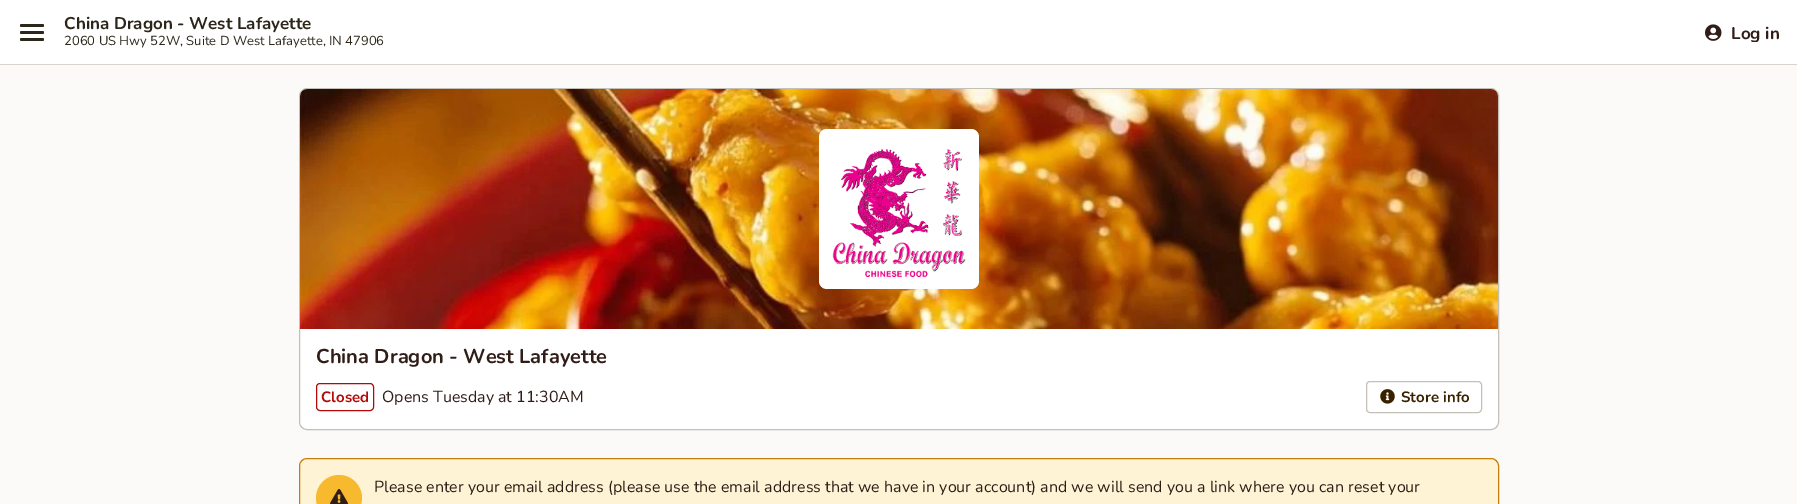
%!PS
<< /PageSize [1797 504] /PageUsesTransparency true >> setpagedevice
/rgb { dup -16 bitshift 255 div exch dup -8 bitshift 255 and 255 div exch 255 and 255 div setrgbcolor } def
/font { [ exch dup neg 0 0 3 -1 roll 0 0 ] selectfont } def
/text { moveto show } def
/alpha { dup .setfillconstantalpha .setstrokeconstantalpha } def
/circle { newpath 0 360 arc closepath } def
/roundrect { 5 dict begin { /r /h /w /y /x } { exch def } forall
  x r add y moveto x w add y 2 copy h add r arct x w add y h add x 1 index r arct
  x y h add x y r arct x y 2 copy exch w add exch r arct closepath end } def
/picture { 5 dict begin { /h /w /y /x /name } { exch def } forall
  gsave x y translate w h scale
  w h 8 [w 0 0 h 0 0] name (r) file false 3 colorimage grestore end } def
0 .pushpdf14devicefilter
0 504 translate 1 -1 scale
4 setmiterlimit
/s1 { /Nunito-Bold 17 font 16#2C261A rgb } def
/s2 { /Nunito-Regular 13 font 16#2C261A rgb } def
/s3 { /Nunito-Bold 17 font 16#301D17 rgb } def
/s4 { /Nunito-Bold 20 font 16#301D17 rgb } def
/s5 { /Nunito-Bold 15 font 16#B30909 rgb } def
/s6 { /Nunito-Regular 16 font 16#301D17 rgb } def
/s7 { /Nunito-Bold 15 font 16#392100 rgb } def
16#FBFAF9 rgb
0 0 1797 504 rectfill
16#D7D4CD rgb
0 64 1797 1 rectfill
16#FFFFFF rgb
0 0 1797 64 rectfill
16#2C261A rgb
20 24 24 3 1.5 roundrect fill
20 31 24 3 1.5 roundrect fill
20 38 24 3 1.5 roundrect fill
s1
(China Dragon - West Lafayette) 64 29 text
s2
(2060 US Hwy 52W, Suite D West Lafayette, IN 47906) 64 45 text
(pic1.raw) 1705 24 17 17 picture
gsave
1731 25 49 17 rectclip
s3
(Log in) 1731 39 text
grestore
16#FFFFFF rgb
299 88 1200 342 8 roundrect fill
0.55 alpha
16#948D7C rgb
299.5 88.5 1199 341 7.5 roundrect stroke
1 alpha
(pic2.raw) 300 89 1198 240 picture
16#FFFFFF rgb
819 129 160 160 8 roundrect fill
(pic3.raw) 832 148 134 130 picture
s4
(China Dragon - West Lafayette) 316 363 text
16#B30909 rgb
316.5 383.5 57 27 3.5 roundrect stroke
s5
(Closed) 321 402 text
s6
(Opens Tuesday at 11:30AM) 382 402 text
16#C4C0B7 rgb
1366.5 381.5 115 31 3.5 roundrect stroke
(pic4.raw) 1380 389 15 15 picture
s7
(Store info) 1401 402 text
16#FFF3D5 rgb
299.5 458.5 1199 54 7.5 roundrect gsave fill grestore
16#C57E0C rgb
stroke
16#F7B92E rgb
339 498 23 circle fill
(pic5.raw) 330 489 18 15 picture
s6
(Please enter your email address \(please use the email address that we have in your account\) and we will send you a link where you can reset your) 374 492 text
.poppdf14devicefilter showpage
